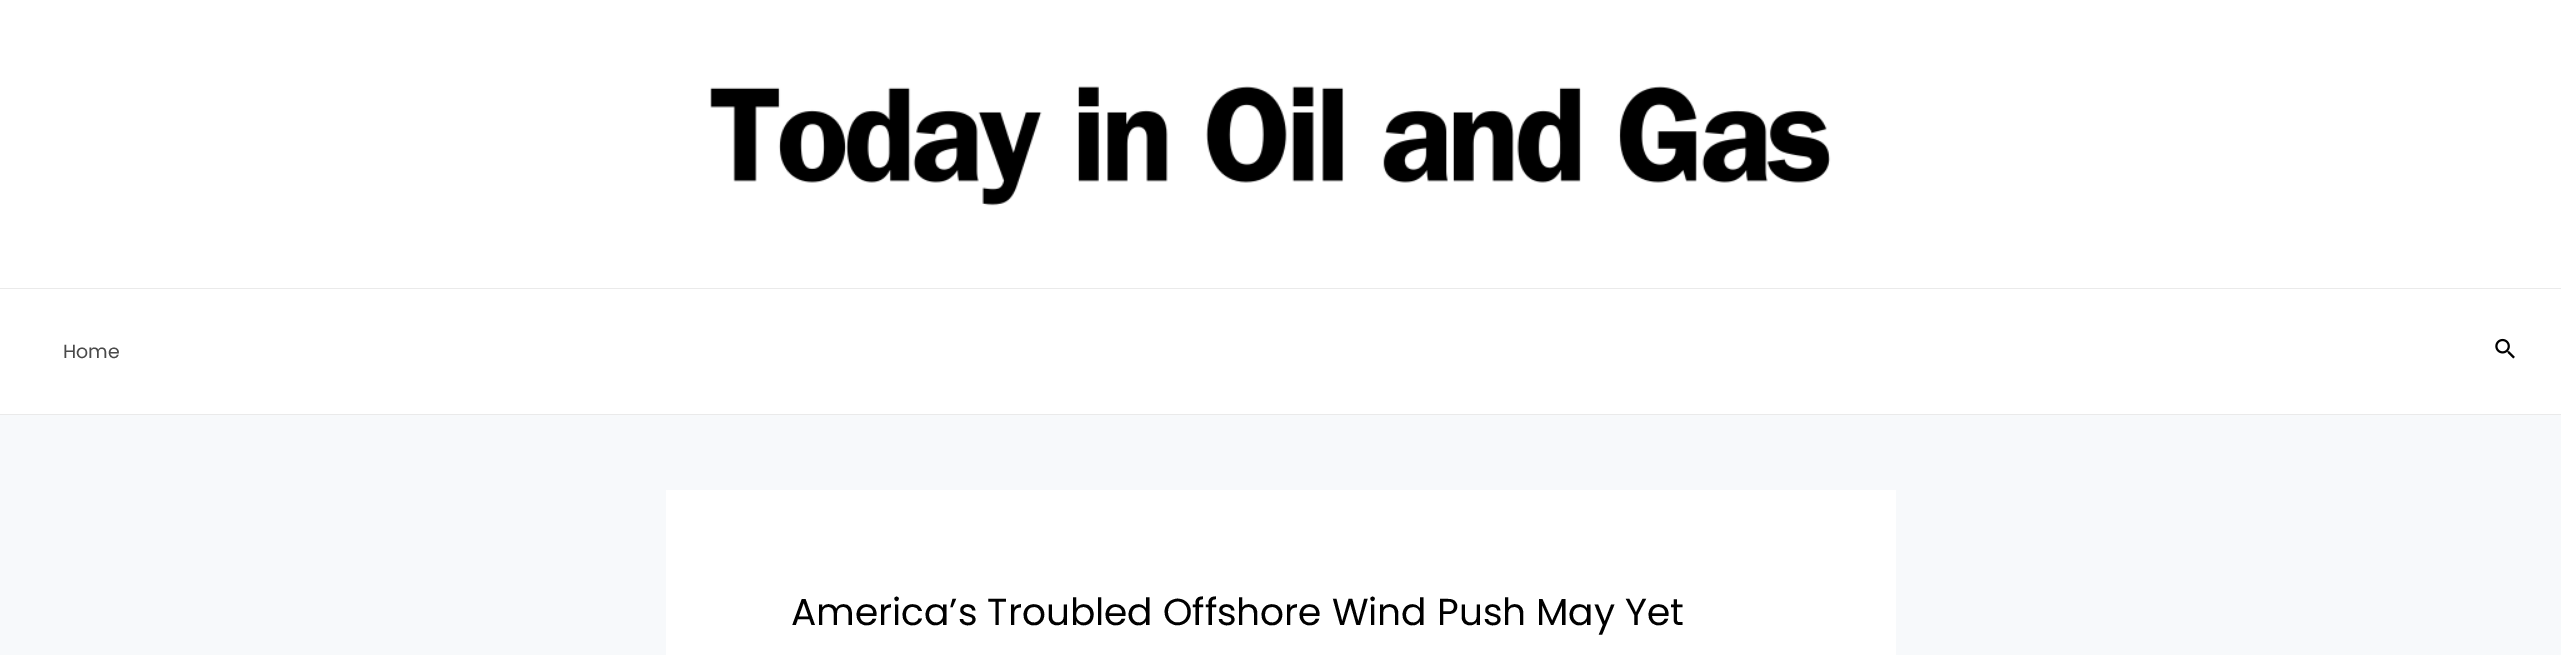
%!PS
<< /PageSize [2561 655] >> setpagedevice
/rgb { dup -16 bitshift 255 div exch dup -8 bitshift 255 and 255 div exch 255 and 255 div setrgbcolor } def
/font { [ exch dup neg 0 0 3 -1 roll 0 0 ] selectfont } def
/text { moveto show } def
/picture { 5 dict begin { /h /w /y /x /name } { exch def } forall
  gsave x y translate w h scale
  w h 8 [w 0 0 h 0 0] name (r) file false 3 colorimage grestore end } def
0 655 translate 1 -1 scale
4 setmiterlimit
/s1 { /Poppins-Regular 19 font 16#4A4A4A rgb } def
/s2 { /Poppins-Regular 37.5 font 16#000000 rgb } def
16#F7F9FB rgb
0 0 2561 655 rectfill
16#FFFFFF rgb
0 0 2561 288 rectfill
16#EAEAEA rgb
0 288 2561 1 rectfill
(pic1.raw) 710 86 1121 120 picture
16#FFFFFF rgb
0 289 2561 125 rectfill
16#EAEAEA rgb
0 414 2561 1 rectfill
s1
(Home) 63 358 text
(pic2.raw) 2495 338 20 21 picture
16#FFFFFF rgb
666 490 1230 165 rectfill
s2
(America’s Troubled Offshore Wind Push May Yet) 791 625 text
showpage
